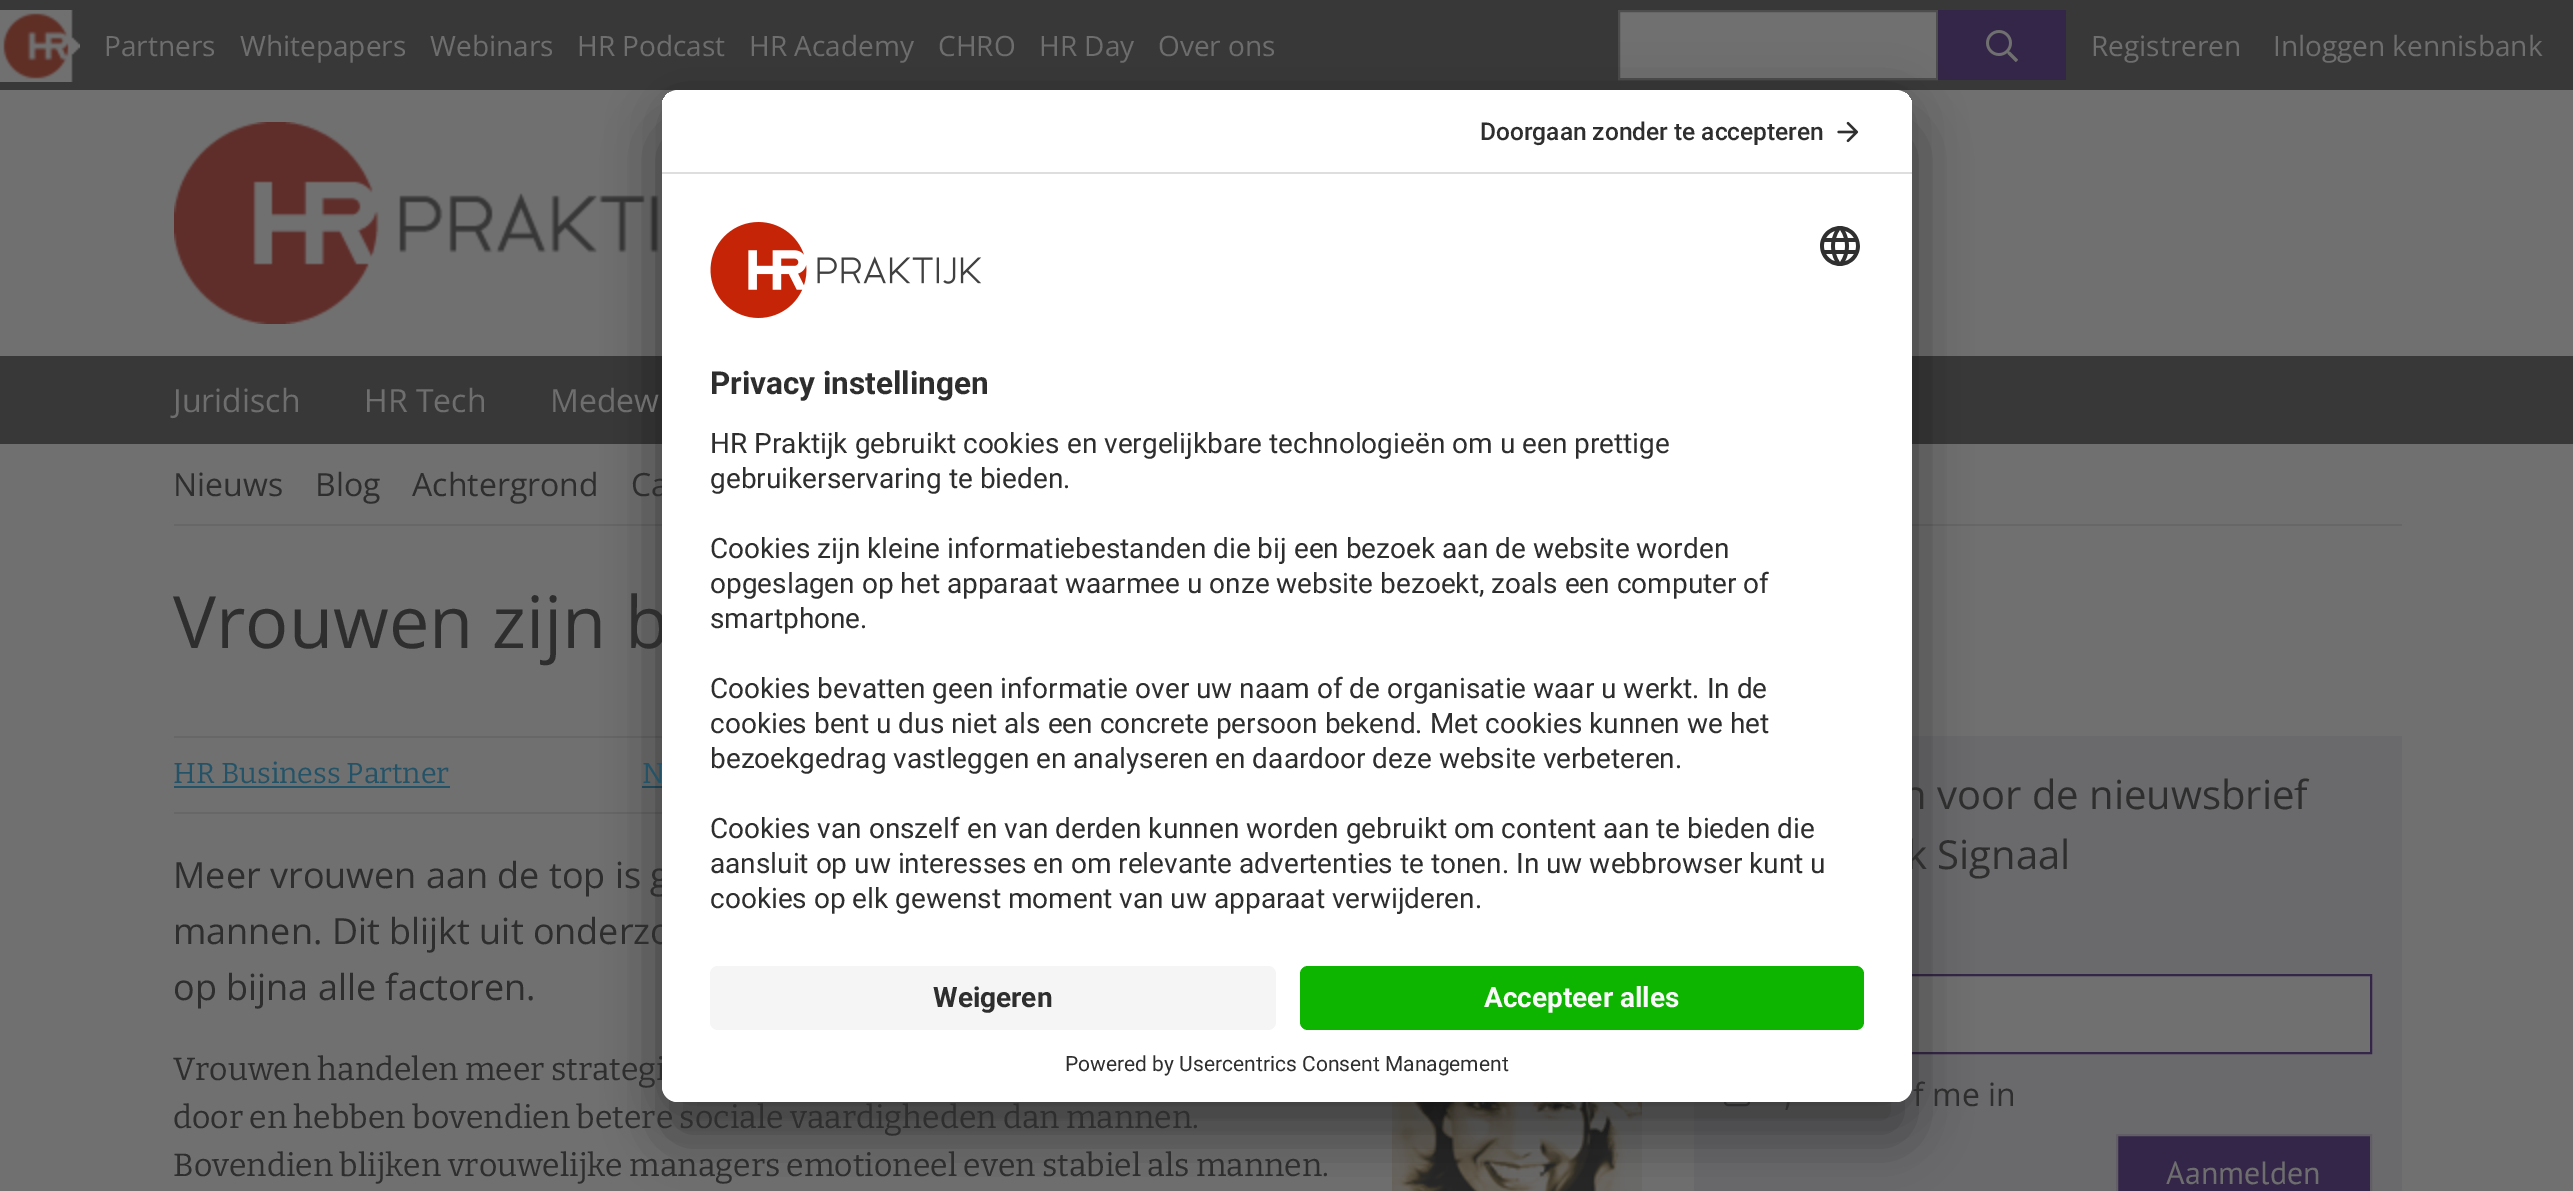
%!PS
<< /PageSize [2573 1191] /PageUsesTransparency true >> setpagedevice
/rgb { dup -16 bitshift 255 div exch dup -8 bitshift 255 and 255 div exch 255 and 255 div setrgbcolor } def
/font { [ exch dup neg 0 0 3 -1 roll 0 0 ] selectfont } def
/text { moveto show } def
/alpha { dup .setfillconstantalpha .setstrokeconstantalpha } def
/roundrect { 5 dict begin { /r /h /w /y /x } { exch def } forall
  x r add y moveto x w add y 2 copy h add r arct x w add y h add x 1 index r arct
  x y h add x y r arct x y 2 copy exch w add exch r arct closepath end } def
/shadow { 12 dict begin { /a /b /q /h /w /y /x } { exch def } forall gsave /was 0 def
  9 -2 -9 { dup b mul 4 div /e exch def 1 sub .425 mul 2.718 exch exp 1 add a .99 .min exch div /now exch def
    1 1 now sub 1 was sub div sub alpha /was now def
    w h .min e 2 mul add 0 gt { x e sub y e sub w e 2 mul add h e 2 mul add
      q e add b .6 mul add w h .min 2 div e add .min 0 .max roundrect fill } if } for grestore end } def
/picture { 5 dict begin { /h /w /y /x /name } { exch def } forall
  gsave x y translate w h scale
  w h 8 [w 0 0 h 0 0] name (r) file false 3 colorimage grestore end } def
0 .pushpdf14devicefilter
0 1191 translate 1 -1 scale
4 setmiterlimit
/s1 { /OpenSans-Regular 28 font 16#6E6E6E rgb } def
/s2 { /OpenSans-Regular 32 font 16#2E2E2E rgb } def
/s3 { /OpenSans-Regular 72 font 16#2E2E2E rgb } def
/s4 { /Bitter-Regular 28.75 font 16#245367 rgb } def
/s5 { /OpenSans-Regular 36 font 16#2E2E2E rgb } def
/s6 { /Bitter-Regular 32 font 16#2E2E2E rgb } def
/s7 { /OpenSans-Regular 40 font 16#2E2E2E rgb } def
/s8 { /Roboto-Medium 24.5 font 16#2E2E2E rgb } def
/s9 { /Roboto-Bold 31.5 font 16#2E2E2E rgb } def
/s10 { /Roboto-Regular 28 font 16#2E2E2E rgb } def
/s11 { /Roboto-Bold 28 font 16#2E2E2E rgb } def
/s12 { /Roboto-Bold 28 font 16#FAFAFA rgb } def
/s13 { /Roboto-Regular 21 font 16#2E2E2E rgb } def
/s14 { /OpenSans-Regular 32 font 16#6E6E6E rgb } def
/s15 { /PTSans-Regular 32 font 16#6E6E6E rgb } def
16#707070 rgb
0 0 2573 1191 rectfill
16#383838 rgb
0 0 2573 90 rectfill
(pic1.raw) 0 10 80 72 picture
s1
(Partners) 104 56 text
(Whitepapers) 240 56 text
(Webinars) 430 56 text
(HR Podcast) 577 56 text
(HR Academy) 749 56 text
(CHRO) 938 56 text
(HR Day) 1039 56 text
(Over ons) 1158 56 text
16#707070 rgb
1619 11 moveto 1937 11 lineto 1937 79 lineto 1619 79 lineto closepath gsave fill grestore
16#4D4D4D rgb
2 setlinewidth
stroke
16#342648 rgb
1938 10 128 70 rectfill
(pic2.raw) 1986 30 32 32 picture
s1
(Registreren) 2091 56 text
(Inloggen kennisbank) 2273 56 text
(pic6.raw) 174 122 485 202 picture
16#383838 rgb
0 356 2573 88 rectfill
16#676767 rgb
174 524 2228 2 rectfill
174 736 488 2 rectfill
174 812 488 2 rectfill
16#245367 rgb
642 786 20 2 rectfill
(pic7.raw) 1392 1102 250 89 picture
16#6A696C rgb
1694 736 708 455 rectfill
16#707070 rgb
1912 976 458 76 rectfill
16#342648 rgb
1725 975 646 78 rectstroke
16#707070 rgb
1725 1081 24 24 3 roundrect gsave fill grestore
16#474747 rgb
stroke
16#000000 rgb
662 130 1250 1012 16 28 0.3 shadow
662 100 1250 1012 16 26 0.22 shadow
s2
(Ca) 631 496 text
s3
(Vrouwen zijn b) 173 648 text
s4
(N) 642 783 text
s5
(Meer vrouwen aan de top is g) 173 888 text
(mannen. Dit blijkt uit onderzo) 173 944 text
s6
(Vrouwen handelen meer strategi) 173 1080 text
s7
(n voor de nieuwsbrief) 1902 809 text
(k Signaal) 1906 869 text
16#FFFFFF rgb
662 90 1250 1012 16 roundrect fill
gsave
662 90 1250 1012 16 roundrect clip newpath
678 90 moveto 1896 90 lineto 1905 90 1912 97 1912 106 curveto 1912 950 lineto 662 950 lineto 662 106 lineto 662 97 669 90 678 90 curveto closepath clip newpath
662 92 1250 80 rectfill
grestore
16#DEDEDE rgb
662 172 1250 2 rectfill
s8
(Doorgaan zonder te accepteren) 1480 140 text
(pic3.raw) 1837 121 22 22 picture
(pic4.raw) 710 222 272 96 picture
(pic5.raw) 1820 226 40 40 picture
s9
(Privacy instellingen) 710 394 text
s10
(HR Praktijk gebruikt cookies en vergelijkbare technologieën om u een prettige) 710 453 text
(gebruikerservaring te bieden.) 710 488 text
(Cookies zijn kleine informatiebestanden die bij een bezoek aan de website worden) 710 558 text
(opgeslagen op het apparaat waarmee u onze website bezoekt, zoals een computer of) 710 593 text
(smartphone.) 710 628 text
(Cookies bevatten geen informatie over uw naam of de organisatie waar u werkt. In de) 710 698 text
(cookies bent u dus niet als een concrete persoon bekend. Met cookies kunnen we het) 710 733 text
(bezoekgedrag vastleggen en analyseren en daardoor deze website verbeteren.) 710 768 text
(Cookies van onszelf en van derden kunnen worden gebruikt om content aan te bieden die) 710 838 text
(aansluit op uw interesses en om relevante advertenties te tonen. In uw webbrowser kunt u) 710 873 text
(cookies op elk gewenst moment van uw apparaat verwijderen.) 710 908 text
16#FFFFFF rgb
662 950 moveto 1912 950 lineto 1912 1086 lineto 1912 1095 1905 1102 1896 1102 curveto 678 1102 lineto 669 1102 662 1095 662 1086 curveto closepath fill
16#F5F5F5 rgb
710 966 566 64 8 roundrect fill
s11
(Weigeren) 933 1007 text
16#0DB500 rgb
1300 966 564 64 8 roundrect fill
s12
(Accepteer alles) 1484 1007 text
s13
(Powered by Usercentrics Consent Management) 1065 1071 text
s14
(Juridisch) 173 412 text
(HR Tech) 364 412 text
(Medew) 550 412 text
s2
(Nieuws) 173 496 text
(Blog) 315 496 text
(Achtergrond) 412 496 text
s4
(HR Business Partner) 173 783 text
174 786 276 2 rectfill
s5
(op bijna alle factoren.) 173 1000 text
s6
(door en hebben bovendien betere sociale vaardigheden dan mannen.) 173 1128 text
(Bovendien blijken vrouwelijke managers emotioneel even stabiel als mannen.) 173 1176 text
s2
(,) 1784 1106 text
(f me in) 1913 1106 text
16#342648 rgb
2117 1135 moveto 2371 1135 lineto 2371 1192 lineto 2117 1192 lineto closepath gsave fill grestore
16#615E66 rgb
stroke
s15
(Aanmelden) 2166 1184 text
.poppdf14devicefilter showpage
